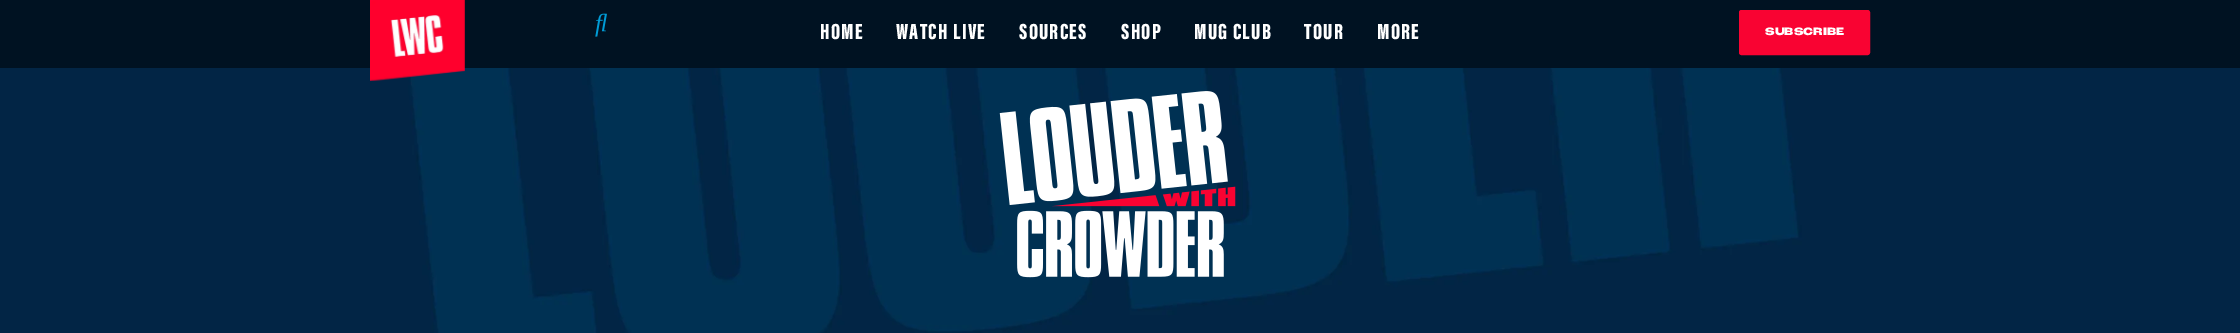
%!PS
<< /PageSize [2240 333] >> setpagedevice
/rgb { dup -16 bitshift 255 div exch dup -8 bitshift 255 and 255 div exch 255 and 255 div setrgbcolor } def
/font { [ exch dup neg 0 0 3 -1 roll 0 0 ] selectfont } def
/text { moveto show } def
/roundrect { 5 dict begin { /r /h /w /y /x } { exch def } forall
  x r add y moveto x w add y 2 copy h add r arct x w add y h add x 1 index r arct
  x y h add x y r arct x y 2 copy exch w add exch r arct closepath end } def
/picture { 5 dict begin { /h /w /y /x /name } { exch def } forall
  gsave x y translate w h scale
  w h 8 [w 0 0 h 0 0] name (r) file false 3 colorimage grestore end } def
0 333 translate 1 -1 scale
4 setmiterlimit
/s1 { /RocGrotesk-ExtraBold 11.25 font 16#FFFFFF rgb } def
16#FFFFFF rgb
0 0 2240 333 rectfill
16#001222 rgb
0 0 2240 68 rectfill
(pic3.raw) 0 68 2240 265 picture
(pic1.raw) 370 0 95 81 picture
(pic2.raw) 595 13 12 24 picture
/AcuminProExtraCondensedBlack-Black 22.5 font
16#FFFFFF rgb
820 39 moveto 1.25 0 (HOME) ashow
896 39 moveto 1.25 0 (WATCH LIVE) ashow
1019 39 moveto 1.25 0 (SOURCES) ashow
1121 39 moveto 1.25 0 (SHOP) ashow
1194 39 moveto 1.25 0 (MUG CLUB) ashow
1304 39 moveto 1.25 0 (TOUR) ashow
1377 39 moveto 1.25 0 (MORE) ashow
16#F90332 rgb
1740.5 11.5 128 42 1 roundrect gsave fill grestore
3 setlinewidth
stroke
s1
(SUBSCRIBE) 1765 35 text
(pic4.raw) 999 91 237 187 picture
showpage
